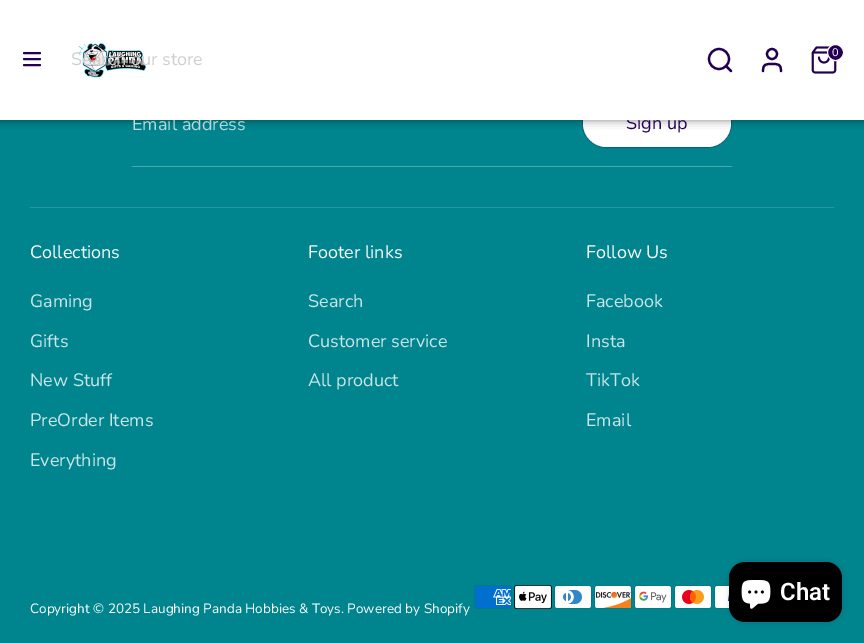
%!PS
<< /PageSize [864 643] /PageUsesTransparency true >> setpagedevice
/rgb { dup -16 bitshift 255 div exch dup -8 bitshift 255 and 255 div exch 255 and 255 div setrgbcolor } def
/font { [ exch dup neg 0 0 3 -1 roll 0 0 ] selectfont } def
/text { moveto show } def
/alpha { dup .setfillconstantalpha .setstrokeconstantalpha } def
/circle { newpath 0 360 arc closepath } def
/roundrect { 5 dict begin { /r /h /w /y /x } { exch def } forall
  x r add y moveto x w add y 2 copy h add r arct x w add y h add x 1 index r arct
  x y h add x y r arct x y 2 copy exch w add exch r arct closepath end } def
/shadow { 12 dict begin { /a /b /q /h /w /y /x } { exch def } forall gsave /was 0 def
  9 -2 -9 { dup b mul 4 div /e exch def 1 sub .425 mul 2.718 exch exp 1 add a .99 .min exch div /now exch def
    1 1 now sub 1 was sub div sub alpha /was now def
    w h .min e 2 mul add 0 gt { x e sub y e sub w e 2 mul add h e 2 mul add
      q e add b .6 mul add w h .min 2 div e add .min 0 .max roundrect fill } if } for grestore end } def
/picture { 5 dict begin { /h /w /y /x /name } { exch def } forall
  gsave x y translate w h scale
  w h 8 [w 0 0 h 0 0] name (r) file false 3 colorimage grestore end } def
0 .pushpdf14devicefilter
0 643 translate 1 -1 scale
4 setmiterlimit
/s1 { /Nunito-Regular 18 font 16#B3DADD rgb } def
/s2 { /Nunito-Regular 18 font 16#230051 rgb } def
/s3 { /Nunito-Regular 18 font 16#CECFD0 rgb } def
/s4 { /Nunito-Regular 11 font 16#FFFFFF rgb } def
/s5 { /Nunito-Regular 18 font 16#FFFFFF rgb } def
/s6 { /Nunito-Regular 18 font 16#CCE6E8 rgb } def
/s7 { /Nunito-Regular 13.5 font 16#FFFFFF rgb } def
/s8 { /Roboto-SemiBold 24 font 16#FFFFFF rgb } def
16#00848E rgb
0 0 864 643 rectfill
16#09637F rgb
582.5 99.5 149 48 24 roundrect stroke
16#FFFFFF rgb
583 100 148 47 23.5 roundrect fill
16#000000 rgb
0 -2 864 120 0 5 0.75 shadow
s1
(Email address) 132 130 text
s2
(Sign up) 626 129 text
16#FFFFFF rgb
0 0 864 120 rectfill
(pic1.raw) 78 42 69 37 picture
16#230051 rgb
2 setlinewidth
1 setlinecap
1 setlinejoin
24 59 moveto 40 59 lineto 24 53 moveto 40 53 lineto 24 65 moveto 40 65 lineto stroke
s3
(Search our store) 71 65 text
16#230051 rgb
2.2 setlinewidth
0 setlinecap
0 setlinejoin
719 59 10 circle stroke
1 setlinecap
1 setlinejoin
731 71 moveto 726 66 lineto stroke
781 71 moveto 781 64 778.5 64 772 64 curveto 765.5 64 763 64 763 71 curveto stroke
0 setlinecap
0 setlinejoin
772 54 5 circle stroke
(pic2.raw) 811 46 26 28 picture
835.5 52.5 8 circle gsave fill grestore
16#FFFFFF rgb
1 setlinewidth
stroke
s4
(0) 832 56 text
16#4DA9B0 rgb
132 166 600 1 rectfill
16#26969F rgb
30 207 804 1 rectfill
s5
(Collections) 30 258 text
s6
(Gaming) 30 307 text
(Gifts) 30 347 text
(New Stuff) 30 386 text
(PreOrder Items) 30 426 text
(Everything) 30 466 text
s5
(Footer links) 308 258 text
s6
(Search) 308 307 text
(Customer service) 308 347 text
(All product) 308 386 text
s5
(Follow Us) 586 258 text
s6
(Facebook) 586 307 text
(Insta) 586 347 text
(TikTok) 586 386 text
(Email) 586 426 text
s7
(Copyright © 2025 Laughing Panda Hobbies & Toys. Powered by Shopify) 30 613 text
(pic3.raw) 474 585 38 24 picture
(pic4.raw) 514 585 38 24 picture
(pic5.raw) 554 585 38 24 picture
(pic6.raw) 594 585 38 24 picture
(pic7.raw) 634 585 38 24 picture
(pic8.raw) 674 585 38 24 picture
(pic9.raw) 714 585 16 24 picture
16#000000 rgb
729 562 113 60 16 2.5 0.15 shadow
729 562 113 60 16 roundrect fill
(pic10.raw) 741 580 30 29 picture
s8
(Chat) 780 600 text
.poppdf14devicefilter showpage
